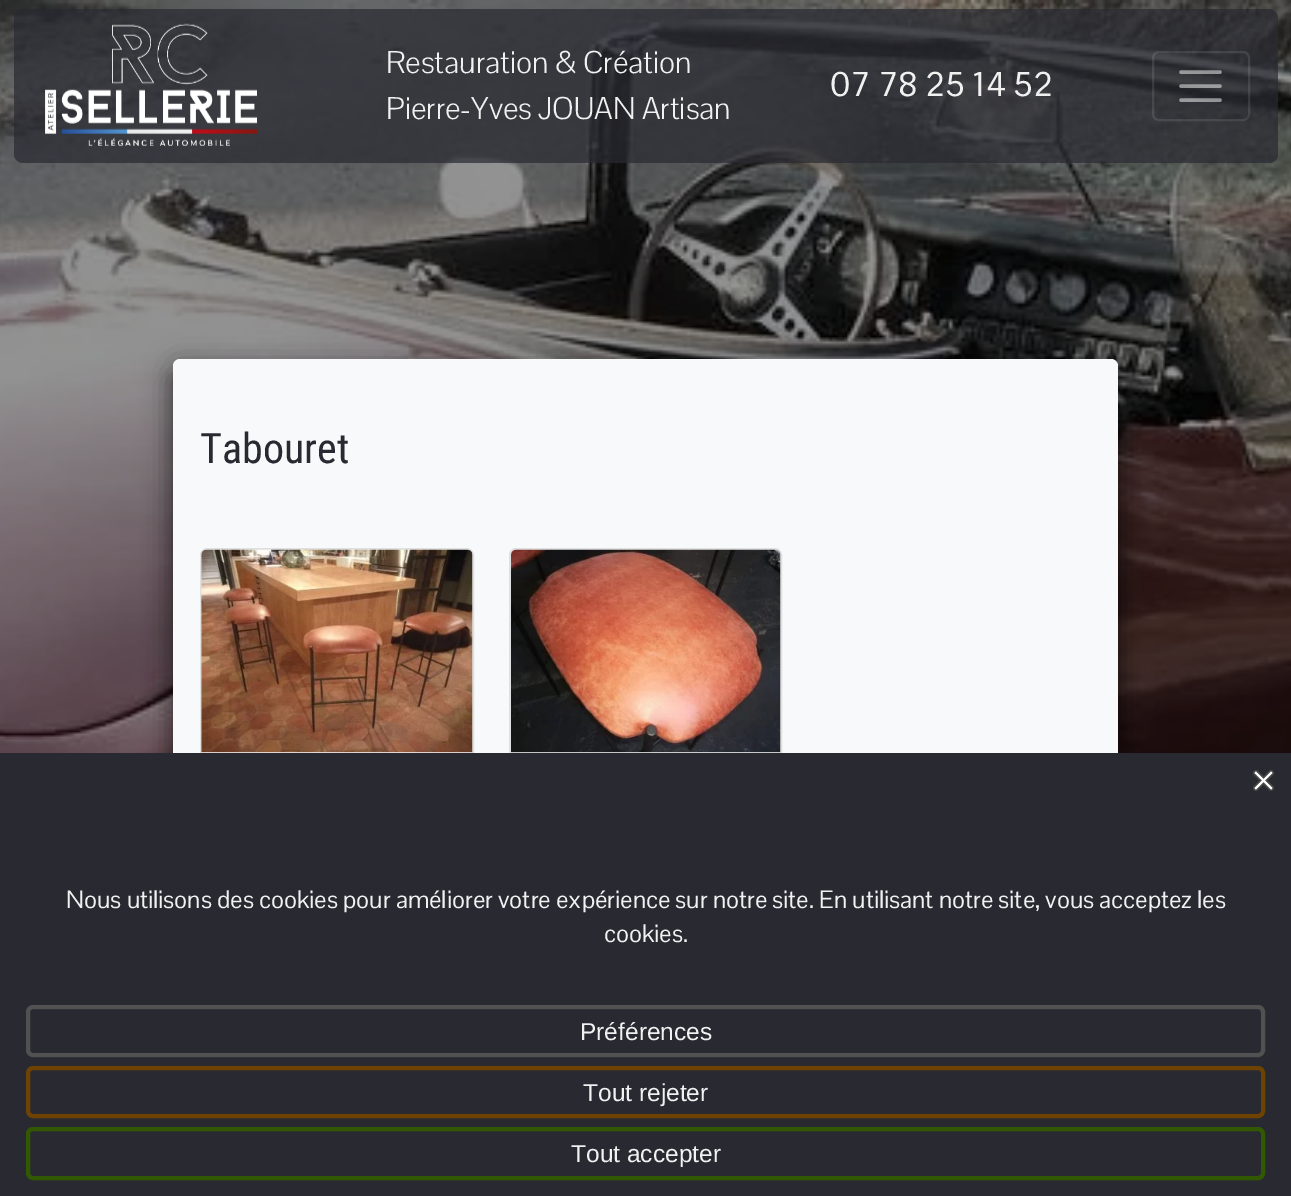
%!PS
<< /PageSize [1291 1196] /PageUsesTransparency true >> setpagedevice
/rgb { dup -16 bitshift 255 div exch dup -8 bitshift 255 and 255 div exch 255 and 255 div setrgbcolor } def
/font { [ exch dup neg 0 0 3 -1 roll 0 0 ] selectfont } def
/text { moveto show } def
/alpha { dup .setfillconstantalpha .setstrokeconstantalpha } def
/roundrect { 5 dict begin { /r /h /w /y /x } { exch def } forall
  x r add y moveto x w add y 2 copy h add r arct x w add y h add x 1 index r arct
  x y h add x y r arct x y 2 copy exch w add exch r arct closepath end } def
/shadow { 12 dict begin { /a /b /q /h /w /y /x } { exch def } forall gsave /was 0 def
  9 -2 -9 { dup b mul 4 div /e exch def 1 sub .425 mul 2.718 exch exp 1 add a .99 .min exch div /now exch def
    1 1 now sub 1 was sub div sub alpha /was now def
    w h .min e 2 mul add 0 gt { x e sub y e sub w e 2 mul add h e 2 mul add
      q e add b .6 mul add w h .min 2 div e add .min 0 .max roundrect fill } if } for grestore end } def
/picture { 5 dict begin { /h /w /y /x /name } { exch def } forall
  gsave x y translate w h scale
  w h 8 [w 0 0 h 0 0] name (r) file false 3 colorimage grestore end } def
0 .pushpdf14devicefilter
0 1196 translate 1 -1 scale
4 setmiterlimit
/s1 { /PontanoSans-Light 30.75 font 16#F1F1F1 rgb } def
/s2 { /PontanoSans-Regular 33.5 font 16#F1F1F1 rgb } def
/s3 { /RobotoCondensed-Regular 42 font 16#282931 rgb } def
/s4 { /PontanoSans-Regular 24.5 font 16#F1F1F1 rgb } def
/s5 { /LiberationSans-Regular 24.5 font 16#F1F1F1 rgb } def
16#FFFFFF rgb
0 0 1291 1196 rectfill
(pic2.raw) 0 0 1291 753 picture
0.7 alpha
16#282931 rgb
14 9 1264 154 9 roundrect fill
1 alpha
(pic1.raw) 45 23 212 123 picture
s1
(Restauration & Création) 386 73 text
(Pierre-Yves JOUAN Artisan) 386 119 text
s2
(07 78 25 14 52) 830 96 text
0.1 alpha
16#FFFFFF rgb
2 setlinewidth
1153 52 96 68 6 roundrect stroke
0.5 alpha
3.5 setlinewidth
1 setlinecap
1181 72 moveto 1220 72 lineto 1181 86 moveto 1220 86 lineto 1181 100 moveto 1220 100 lineto stroke
1 alpha
16#000000 rgb
182 382 928 705 0 9 0.4 shadow
168 359 956 733 12 13 0.22 shadow
166 369 959 737 14 10.5 0.24 shadow
16#F8F9FA rgb
173 359 945 723 7 roundrect fill
s3
(Tabouret) 200 463 text
16#FFFFFF rgb
200 548 274 376 7 roundrect fill
0.12 alpha
16#000000 rgb
2 setlinewidth
0 setlinecap
201 549 272 374 6 roundrect stroke
1 alpha
(pic3.raw) 201 549 272 204 picture
16#FFFFFF rgb
509 548 273 376 7 roundrect fill
0.12 alpha
16#000000 rgb
510 549 271 374 6 roundrect stroke
1 alpha
(pic4.raw) 511 549 270 204 picture
16#282931 rgb
0 753 1291 443 rectfill
(pic5.raw) 1253 770 21 21 picture
s4
(Nous utilisons des cookies pour améliorer votre expérience sur notre site. En utilisant notre site, vous acceptez les) 66 908 text
(cookies.) 604 942 text
16#515151 rgb
4 setlinewidth
28 1007 1235 48 5 roundrect stroke
s5
(Préférences) 580 1040 text
16#6E4201 rgb
28 1068 1235 48 5 roundrect stroke
s5
(Tout rejeter) 583 1101 text
16#325901 rgb
28 1129 1235 49 5 roundrect stroke
s5
(Tout accepter) 571 1162 text
.poppdf14devicefilter showpage
